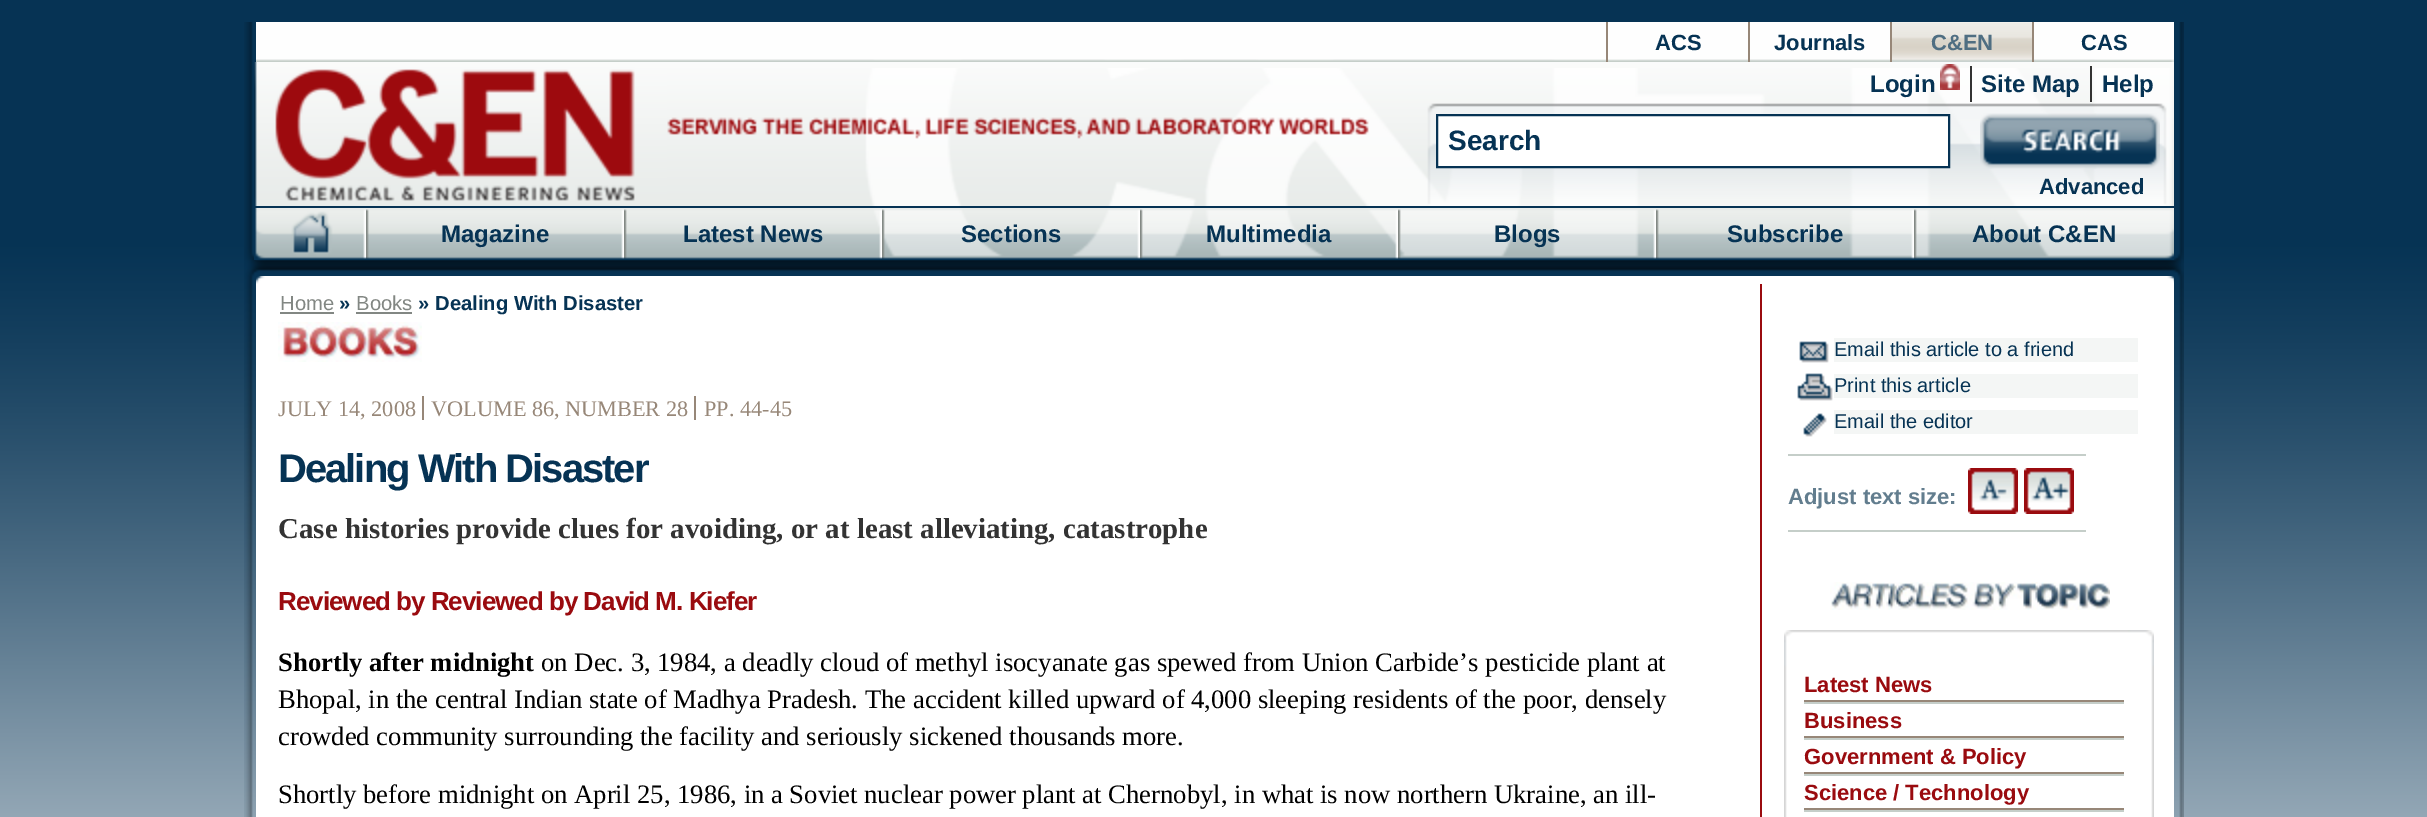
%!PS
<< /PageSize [2427 817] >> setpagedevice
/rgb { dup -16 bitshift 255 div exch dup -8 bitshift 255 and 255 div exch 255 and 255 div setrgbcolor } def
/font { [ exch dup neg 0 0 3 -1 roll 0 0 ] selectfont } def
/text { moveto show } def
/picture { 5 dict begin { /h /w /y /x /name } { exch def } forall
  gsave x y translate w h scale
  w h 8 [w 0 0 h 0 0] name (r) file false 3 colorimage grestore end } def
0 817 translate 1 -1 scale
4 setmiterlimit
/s1 { /LiberationSans-Bold 22 font 16#063354 rgb } def
/s2 { /LiberationSans-Bold 22 font 16#4F6E82 rgb } def
/s3 { /LiberationSans-Bold 24 font 16#063354 rgb } def
/s4 { /LiberationSans-Bold 28 font 16#063354 rgb } def
/s5 { /LiberationSans-Regular 20.25 font 16#828783 rgb } def
/s6 { /LiberationSans-Bold 20.25 font 16#063354 rgb } def
/s7 { /LiberationSerif-Regular 22.25 font 16#978778 rgb } def
/s8 { /LiberationSerif-Bold 28.9 font 16#333333 rgb } def
/s9 { /LiberationSerif-Bold 26.65 font 16#000000 rgb } def
/s10 { /LiberationSerif-Regular 26.65 font 16#000000 rgb } def
/s11 { /LiberationSans-Regular 20 font 16#063354 rgb } def
/s12 { /LiberationSans-Bold 22 font 16#627D8E rgb } def
/s13 { /LiberationSans-Bold 22 font 16#9A0B0F rgb } def
16#FFFFFF rgb
0 0 2427 817 rectfill
(pic1.raw) 0 0 2427 817 picture
(pic2.raw) 244 22 1940 795 picture
16#FEFEFE rgb
256 22 1918 37 rectfill
(pic3.raw) 256 59 1918 3 picture
16#978778 rgb
1606 22 2 40 rectfill
s1
(ACS) 1655 50 text
16#978778 rgb
1748 22 2 40 rectfill
s1
(Journals) 1774 50 text
16#978778 rgb
1890 22 2 40 rectfill
(pic4.raw) 1892 22 140 40 picture
s2
(C&EN) 1931 50 text
16#978778 rgb
2032 22 2 40 rectfill
s1
(CAS) 2081 50 text
(pic5.raw) 635 62 1539 144 picture
(pic6.raw) 667 68 1505 138 picture
(pic7.raw) 254 62 381 144 picture
s3
(Login) 1870 92 text
(pic8.raw) 1940 64 20 26 picture
16#333333 rgb
1970 66 2 36 rectfill
s3
(Site Map) 1981 92 text
16#333333 rgb
2090 66 2 36 rectfill
s3
(Help) 2102 92 text
16#FFFFFF rgb
1437 115 moveto 1949 115 lineto 1949 167 lineto 1437 167 lineto closepath gsave fill grestore
16#063354 rgb
2 setlinewidth
stroke
s4
(Search) 1448 150 text
(pic9.raw) 1980 113 180 56 picture
s1
(Advanced) 2039 194 text
(pic10.raw) 254 208 112 52 picture
(pic11.raw) 366 208 258 52 picture
s3
(Magazine) 441 242 text
(pic12.raw) 624 208 258 52 picture
(Latest News) 683 242 text
(pic13.raw) 882 208 258 52 picture
(Sections) 961 242 text
(pic14.raw) 1140 208 258 52 picture
(Multimedia) 1206 242 text
(pic15.raw) 1398 208 258 52 picture
(Blogs) 1494 242 text
(pic16.raw) 1656 208 258 52 picture
(Subscribe) 1727 242 text
(pic17.raw) 1914 208 260 52 picture
(About C&EN) 1972 242 text
16#FFFFFF rgb
256 276 1918 541 rectfill
(pic18.raw) 256 276 9 8 picture
(pic19.raw) 2167 276 7 7 picture
16#9A0B0F rgb
1760 284 2 533 rectfill
s5
(Home) 280 310 text
280 312 54 2 rectfill
s6
(») 339 310 text
s5
(Books) 356 310 text
356 312 56 2 rectfill
s6
(» Dealing With Disaster) 418 310 text
(pic20.raw) 278 322 144 40 picture
s7
(JULY 14, 2008) 278 416 text
(VOLUME 86, NUMBER 28) 431 416 text
422 396 2 24 rectfill
(PP. 44-45) 704 416 text
694 396 2 24 rectfill
/LiberationSans-Bold 40 font
16#063354 rgb
278 482 moveto -2 0 (Dealing With Disaster) ashow
s8
(Case histories provide clues for avoiding, or at least alleviating, catastrophe) 278 538 text
/LiberationSans-Bold 26 font
16#9A0B0F rgb
278 610 moveto -1 0 (Reviewed by Reviewed by David M. Kiefer) ashow
s9
(Shortly after midnight) 278 671 text
s10
(on Dec. 3, 1984, a deadly cloud of methyl isocyanate gas spewed from Union Carbide’s pesticide plant at) 541 671 text
(Bhopal, in the central Indian state of Madhya Pradesh. The accident killed upward of 4,000 sleeping residents of the poor, densely) 278 708 text
(crowded community surrounding the facility and seriously sickened thousands more.) 278 745 text
(Shortly before midnight on April 25, 1986, in a Soviet nuclear power plant at Chernobyl, in what is now northern Ukraine, an ill-) 278 803 text
(pic21.raw) 1799 341 30 22 picture
16#F4F6F5 rgb
1834 338 304 24 rectfill
s11
(Email this article to a friend) 1834 356 text
(pic22.raw) 1797 373 36 28 picture
16#F4F6F5 rgb
1834 374 304 24 rectfill
s11
(Print this article) 1834 392 text
(pic23.raw) 1803 413 24 24 picture
16#F4F6F5 rgb
1834 410 304 24 rectfill
s11
(Email the editor) 1834 428 text
16#C5CEC9 rgb
1788 454 298 2 rectfill
1788 530 298 2 rectfill
s12
(Adjust text size:) 1788 504 text
(pic24.raw) 1968 468 50 46 picture
(pic25.raw) 2024 468 50 46 picture
(pic26.raw) 1830 582 280 28 picture
(pic27.raw) 1784 630 370 187 picture
16#978778 rgb
1804 700 320 2 rectfill
s13
(Latest News) 1804 692 text
16#C5CEC9 rgb
1804 702 320 2 rectfill
16#978778 rgb
1804 736 320 2 rectfill
s13
(Business) 1804 728 text
16#C5CEC9 rgb
1804 738 320 2 rectfill
16#978778 rgb
1804 772 320 2 rectfill
s13
(Government & Policy) 1804 764 text
16#C5CEC9 rgb
1804 774 320 2 rectfill
16#978778 rgb
1804 808 320 2 rectfill
s13
(Science / Technology) 1804 800 text
16#C5CEC9 rgb
1804 810 320 2 rectfill
showpage
